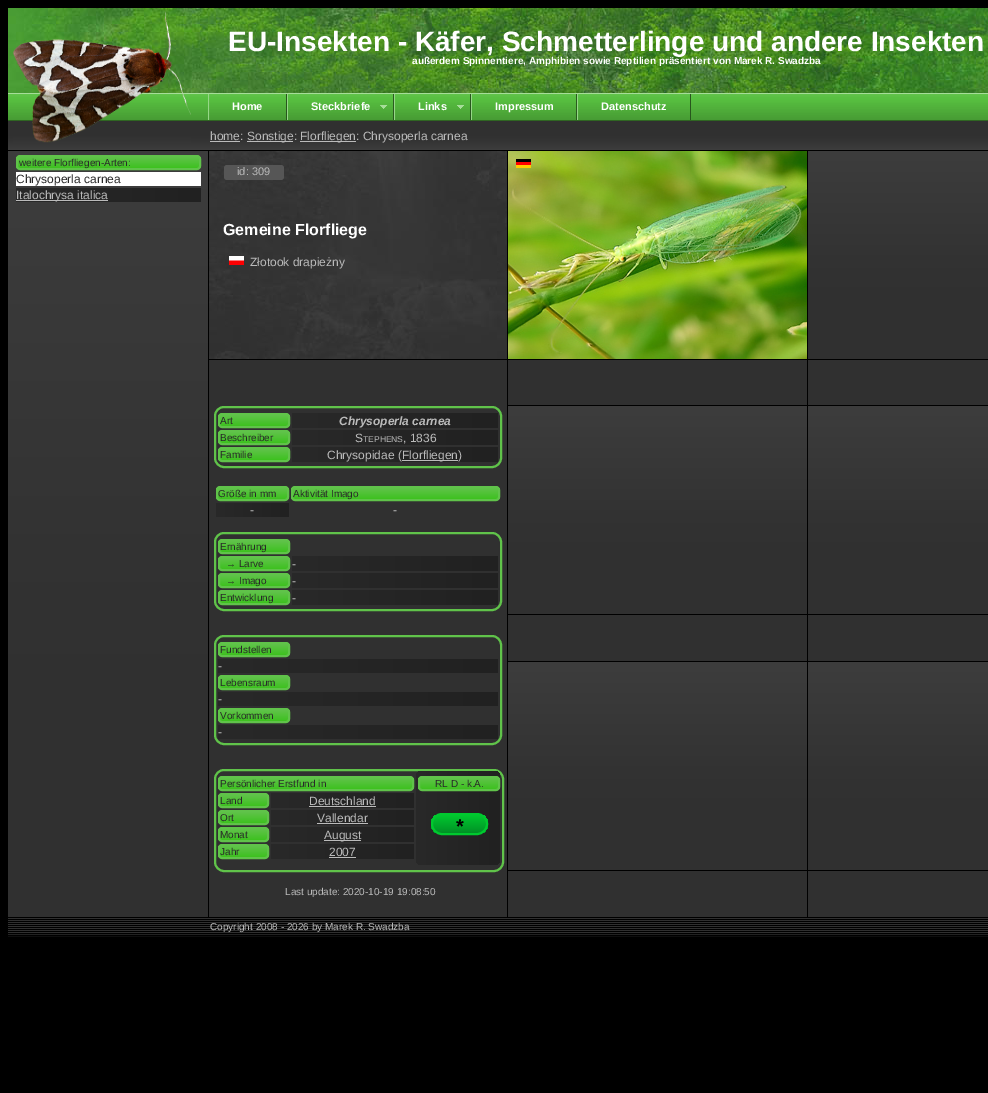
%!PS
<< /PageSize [988 1093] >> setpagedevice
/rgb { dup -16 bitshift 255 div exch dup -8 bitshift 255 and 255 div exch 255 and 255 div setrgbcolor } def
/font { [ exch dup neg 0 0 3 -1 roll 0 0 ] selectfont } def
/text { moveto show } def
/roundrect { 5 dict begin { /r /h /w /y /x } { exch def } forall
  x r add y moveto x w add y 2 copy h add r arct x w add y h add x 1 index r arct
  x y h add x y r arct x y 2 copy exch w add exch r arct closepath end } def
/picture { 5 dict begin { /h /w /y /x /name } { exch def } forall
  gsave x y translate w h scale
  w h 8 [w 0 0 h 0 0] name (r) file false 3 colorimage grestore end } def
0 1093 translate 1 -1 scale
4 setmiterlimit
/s1 { /LiberationSans-Bold 28 font 16#FFFFFF rgb } def
/s2 { /LiberationSans-Bold 10 font 16#FFFFFF rgb } def
/s3 { /LiberationSans-Bold 11 font 16#FFFFFF rgb } def
/s4 { /LiberationSans-Regular 12 font 16#BBBBBB rgb } def
/s5 { /LiberationSans-Regular 10 font 16#292929 rgb } def
/s6 { /LiberationSans-Regular 12 font 16#292929 rgb } def
/s7 { /LiberationSans-Regular 11 font 16#BBBBBB rgb } def
/s8 { /LiberationSans-Bold 16 font 16#FFFFFF rgb } def
/s9 { /LiberationSans-BoldItalic 12 font 16#BBBBBB rgb } def
/s10 { /LiberationSans-Regular 8.5 font 16#BBBBBB rgb } def
/s11 { /LiberationSans-Bold 20 font 16#000000 rgb } def
/s12 { /LiberationSans-Regular 10 font 16#BBBBBB rgb } def
16#000000 rgb
0 0 988 1093 rectfill
(pic1.raw) 8 8 980 85 picture
16#303030 rgb
8 121 980 8 rectfill
(pic3.raw) 8 93 200 28 picture
gsave 8 129 moveto 988 129 lineto 988 150 lineto 8 150 lineto closepath clip newpath
<< /ShadingType 2 /ColorSpace /DeviceRGB /Coords [648 129 648 150] /Extend [true true] /Function << /FunctionType 3 /Domain [0 1] /Functions [<< /FunctionType 2 /Domain [0 1] /C0 [0.188 0.188 0.188] /C1 [0.188 0.188 0.188] /N 1 >> << /FunctionType 2 /Domain [0 1] /C0 [0.188 0.188 0.188] /C1 [0.239 0.239 0.239] /N 1 >>] /Bounds [0.32] /Encode [0 1 0 1] >> >> shfill grestore
(pic2.raw) 13 11 178 132 picture
s1
(EU-Insekten - Käfer, Schmetterlinge und andere Insekten) 228 51 text
s2
(außerdem Spinnentiere, Amphibien sowie Reptilien präsentiert von Marek R. Swadzba) 412 64 text
(pic4.raw) 208 93 780 28 picture
(pic5.raw) 208 94 2 26 picture
16#28561D rgb
286 94 1 26 rectfill
s3
(Home) 232 110 text
16#96D787 rgb
287 94 1 26 rectfill
(pic6.raw) 380 94 14 26 picture
s3
(Steckbriefe) 311 110 text
(pic5.raw) 394 94 2 26 picture
(pic7.raw) 457 94 14 26 picture
(Links) 418 110 text
16#96D787 rgb
471 94 1 26 rectfill
16#2A5B1E rgb
576 94 1 26 rectfill
s3
(Impressum) 495 110 text
(pic5.raw) 577 94 2 26 picture
16#28561D rgb
690 94 1 26 rectfill
s3
(Datenschutz) 601 110 text
s4
(home:) 210 140 text
210 141 30 1 rectfill
247 141 46 1 rectfill
(Sonstige:) 247 140 text
300 141 56 1 rectfill
(Florfliegen: Chrysoperla carnea) 300 140 text
gsave 8 151 moveto 208 151 lineto 208 917 lineto 8 917 lineto closepath clip newpath
<< /ShadingType 2 /ColorSpace /DeviceRGB /Coords [108 151 108 917] /Extend [true true] /Function << /FunctionType 3 /Domain [0 1] /Functions [<< /FunctionType 2 /Domain [0 1] /C0 [0.239 0.239 0.239] /C1 [0.188 0.188 0.188] /N 1 >> << /FunctionType 2 /Domain [0 1] /C0 [0.188 0.188 0.188] /C1 [0.188 0.188 0.188] /N 1 >>] /Bounds [0.68] /Encode [0 1 0 1] >> >> shfill grestore
gsave
16 155 185 15 4 roundrect clip newpath
gsave 16 157 moveto 201 157 lineto 201 168 lineto 16 168 lineto closepath clip newpath
<< /ShadingType 2 /ColorSpace /DeviceRGB /Coords [109 157 109 168] /Extend [true true] /Function << /FunctionType 2 /Domain [0 1] /C0 [0.376 0.765 0.29] /C1 [0.243 0.757 0.125] /N 1 >> >> shfill grestore
grestore
16#60C34A rgb
2 setlinewidth
17 156 183 13 3 roundrect stroke
s5
(weitere Florfliegen-Arten:) 19 166 text
16#FFFFFF rgb
16 172 185 14 rectfill
s6
(Chrysoperla carnea) 16 183 text
gsave 16 188 moveto 201 188 lineto 201 202 lineto 16 202 lineto closepath clip newpath
<< /ShadingType 2 /ColorSpace /DeviceRGB /Coords [16 195 201 195] /Extend [true true] /Function << /FunctionType 2 /Domain [0 1] /C0 [0.161 0.161 0.161] /C1 [0.129 0.129 0.129] /N 1 >> >> shfill grestore
16#BBBBBB rgb
16 200 92 1 rectfill
(Italochrysa italica) 16 199 text
(pic8.raw) 209 151 298 208 picture
16#565656 rgb
224 165 60 15 3 roundrect fill
s7
(id: 309) 237 175 text
s8
(Gemeine Florfliege) 223 235 text
(pic9.raw) 229 256 15 9 picture
s4
(Złotook drapieżny) 250 266 text
(pic10.raw) 508 151 299 208 picture
(pic11.raw) 516 159 15 9 picture
gsave 808 151 moveto 988 151 lineto 988 359 lineto 808 359 lineto closepath clip newpath
<< /ShadingType 2 /ColorSpace /DeviceRGB /Coords [958 151 958 359] /Extend [true true] /Function << /FunctionType 3 /Domain [0 1] /Functions [<< /FunctionType 2 /Domain [0 1] /C0 [0.239 0.239 0.239] /C1 [0.188 0.188 0.188] /N 1 >> << /FunctionType 2 /Domain [0 1] /C0 [0.188 0.188 0.188] /C1 [0.188 0.188 0.188] /N 1 >>] /Bounds [0.68] /Encode [0 1 0 1] >> >> shfill grestore
16#303030 rgb
209 360 298 557 rectfill
16#60C34A rgb
215 407 286 60 9 roundrect stroke
gsave
218 413 72 15 4 roundrect clip newpath
gsave 218 415 moveto 290 415 lineto 290 426 lineto 218 426 lineto closepath clip newpath
<< /ShadingType 2 /ColorSpace /DeviceRGB /Coords [254 415 254 426] /Extend [true true] /Function << /FunctionType 2 /Domain [0 1] /C0 [0.376 0.765 0.29] /C1 [0.243 0.757 0.125] /N 1 >> >> shfill grestore
grestore
219 414 70 13 3 roundrect stroke
s5
(Art) 220 424 text
gsave 292 413 moveto 498 413 lineto 498 428 lineto 292 428 lineto closepath clip newpath
<< /ShadingType 2 /ColorSpace /DeviceRGB /Coords [292 421 498 421] /Extend [true true] /Function << /FunctionType 2 /Domain [0 1] /C0 [0.161 0.161 0.161] /C1 [0.129 0.129 0.129] /N 1 >> >> shfill grestore
s9
(Chrysoperla carnea) 339 425 text
gsave
218 430 72 15 4 roundrect clip newpath
gsave 218 432 moveto 290 432 lineto 290 443 lineto 218 443 lineto closepath clip newpath
<< /ShadingType 2 /ColorSpace /DeviceRGB /Coords [254 432 254 443] /Extend [true true] /Function << /FunctionType 2 /Domain [0 1] /C0 [0.376 0.765 0.29] /C1 [0.243 0.757 0.125] /N 1 >> >> shfill grestore
grestore
16#60C34A rgb
219 431 70 13 3 roundrect stroke
s5
(Beschreiber) 220 441 text
gsave 292 430 moveto 498 430 lineto 498 445 lineto 292 445 lineto closepath clip newpath
<< /ShadingType 2 /ColorSpace /DeviceRGB /Coords [292 438 498 438] /Extend [true true] /Function << /FunctionType 2 /Domain [0 1] /C0 [0.161 0.161 0.161] /C1 [0.129 0.129 0.129] /N 1 >> >> shfill grestore
s4
(S) 355 442 text
s10
(TEPHENS) 363 442 text
s4
(, 1836) 403 442 text
gsave
218 447 72 15 4 roundrect clip newpath
gsave 218 449 moveto 290 449 lineto 290 460 lineto 218 460 lineto closepath clip newpath
<< /ShadingType 2 /ColorSpace /DeviceRGB /Coords [254 449 254 460] /Extend [true true] /Function << /FunctionType 2 /Domain [0 1] /C0 [0.376 0.765 0.29] /C1 [0.243 0.757 0.125] /N 1 >> >> shfill grestore
grestore
16#60C34A rgb
219 448 70 13 3 roundrect stroke
s5
(Familie) 220 458 text
gsave 292 447 moveto 498 447 lineto 498 462 lineto 292 462 lineto closepath clip newpath
<< /ShadingType 2 /ColorSpace /DeviceRGB /Coords [292 455 498 455] /Extend [true true] /Function << /FunctionType 2 /Domain [0 1] /C0 [0.161 0.161 0.161] /C1 [0.129 0.129 0.129] /N 1 >> >> shfill grestore
s4
(Chrysopidae \() 327 459 text
402 460 56 1 rectfill
(Florfliegen\)) 402 459 text
gsave
216 486 73 15 4 roundrect clip newpath
gsave 216 488 moveto 289 488 lineto 289 499 lineto 216 499 lineto closepath clip newpath
<< /ShadingType 2 /ColorSpace /DeviceRGB /Coords [253 488 253 499] /Extend [true true] /Function << /FunctionType 2 /Domain [0 1] /C0 [0.376 0.765 0.29] /C1 [0.243 0.757 0.125] /N 1 >> >> shfill grestore
grestore
16#60C34A rgb
217 487 71 13 3 roundrect stroke
s5
(Größe in mm) 218 497 text
gsave
291 486 209 15 4 roundrect clip newpath
gsave 291 488 moveto 500 488 lineto 500 499 lineto 291 499 lineto closepath clip newpath
<< /ShadingType 2 /ColorSpace /DeviceRGB /Coords [396 488 396 499] /Extend [true true] /Function << /FunctionType 2 /Domain [0 1] /C0 [0.376 0.765 0.29] /C1 [0.243 0.757 0.125] /N 1 >> >> shfill grestore
grestore
16#60C34A rgb
292 487 207 13 3 roundrect stroke
s5
(Aktivität Imago) 293 497 text
gsave 216 503 moveto 289 503 lineto 289 517 lineto 216 517 lineto closepath clip newpath
<< /ShadingType 2 /ColorSpace /DeviceRGB /Coords [216 510 289 510] /Extend [true true] /Function << /FunctionType 2 /Domain [0 1] /C0 [0.161 0.161 0.161] /C1 [0.129 0.129 0.129] /N 1 >> >> shfill grestore
s4
(-) 250 514 text
(-) 393 514 text
16#60C34A rgb
215 533 286 77 9 roundrect stroke
gsave
218 539 72 15 4 roundrect clip newpath
gsave 218 541 moveto 290 541 lineto 290 552 lineto 218 552 lineto closepath clip newpath
<< /ShadingType 2 /ColorSpace /DeviceRGB /Coords [254 541 254 552] /Extend [true true] /Function << /FunctionType 2 /Domain [0 1] /C0 [0.376 0.765 0.29] /C1 [0.243 0.757 0.125] /N 1 >> >> shfill grestore
grestore
219 540 70 13 3 roundrect stroke
s5
(Ernährung) 220 550 text
gsave
218 556 72 15 4 roundrect clip newpath
gsave 218 558 moveto 290 558 lineto 290 569 lineto 218 569 lineto closepath clip newpath
<< /ShadingType 2 /ColorSpace /DeviceRGB /Coords [254 558 254 569] /Extend [true true] /Function << /FunctionType 2 /Domain [0 1] /C0 [0.376 0.765 0.29] /C1 [0.243 0.757 0.125] /N 1 >> >> shfill grestore
grestore
16#60C34A rgb
219 557 70 13 3 roundrect stroke
s5
(→ Larve) 226 567 text
gsave 292 556 moveto 498 556 lineto 498 571 lineto 292 571 lineto closepath clip newpath
<< /ShadingType 2 /ColorSpace /DeviceRGB /Coords [292 564 498 564] /Extend [true true] /Function << /FunctionType 2 /Domain [0 1] /C0 [0.161 0.161 0.161] /C1 [0.129 0.129 0.129] /N 1 >> >> shfill grestore
s4
(-) 292 568 text
gsave
218 573 72 15 4 roundrect clip newpath
gsave 218 575 moveto 290 575 lineto 290 586 lineto 218 586 lineto closepath clip newpath
<< /ShadingType 2 /ColorSpace /DeviceRGB /Coords [254 575 254 586] /Extend [true true] /Function << /FunctionType 2 /Domain [0 1] /C0 [0.376 0.765 0.29] /C1 [0.243 0.757 0.125] /N 1 >> >> shfill grestore
grestore
16#60C34A rgb
219 574 70 13 3 roundrect stroke
s5
(→ Imago) 226 584 text
gsave 292 573 moveto 498 573 lineto 498 588 lineto 292 588 lineto closepath clip newpath
<< /ShadingType 2 /ColorSpace /DeviceRGB /Coords [292 581 498 581] /Extend [true true] /Function << /FunctionType 2 /Domain [0 1] /C0 [0.161 0.161 0.161] /C1 [0.129 0.129 0.129] /N 1 >> >> shfill grestore
s4
(-) 292 585 text
gsave
218 590 72 15 4 roundrect clip newpath
gsave 218 592 moveto 290 592 lineto 290 603 lineto 218 603 lineto closepath clip newpath
<< /ShadingType 2 /ColorSpace /DeviceRGB /Coords [254 592 254 603] /Extend [true true] /Function << /FunctionType 2 /Domain [0 1] /C0 [0.376 0.765 0.29] /C1 [0.243 0.757 0.125] /N 1 >> >> shfill grestore
grestore
16#60C34A rgb
219 591 70 13 3 roundrect stroke
s5
(Entwicklung) 220 601 text
gsave 292 590 moveto 498 590 lineto 498 605 lineto 292 605 lineto closepath clip newpath
<< /ShadingType 2 /ColorSpace /DeviceRGB /Coords [292 598 498 598] /Extend [true true] /Function << /FunctionType 2 /Domain [0 1] /C0 [0.161 0.161 0.161] /C1 [0.129 0.129 0.129] /N 1 >> >> shfill grestore
s4
(-) 292 602 text
16#60C34A rgb
215 636 286 108 9 roundrect stroke
gsave
218 642 72 15 4 roundrect clip newpath
gsave 218 644 moveto 290 644 lineto 290 655 lineto 218 655 lineto closepath clip newpath
<< /ShadingType 2 /ColorSpace /DeviceRGB /Coords [254 644 254 655] /Extend [true true] /Function << /FunctionType 2 /Domain [0 1] /C0 [0.376 0.765 0.29] /C1 [0.243 0.757 0.125] /N 1 >> >> shfill grestore
grestore
219 643 70 13 3 roundrect stroke
s5
(Fundstellen) 220 653 text
gsave 218 659 moveto 498 659 lineto 498 673 lineto 218 673 lineto closepath clip newpath
<< /ShadingType 2 /ColorSpace /DeviceRGB /Coords [218 666 498 666] /Extend [true true] /Function << /FunctionType 2 /Domain [0 1] /C0 [0.161 0.161 0.161] /C1 [0.129 0.129 0.129] /N 1 >> >> shfill grestore
s4
(-) 218 670 text
gsave
218 675 72 15 4 roundrect clip newpath
gsave 218 677 moveto 290 677 lineto 290 688 lineto 218 688 lineto closepath clip newpath
<< /ShadingType 2 /ColorSpace /DeviceRGB /Coords [254 677 254 688] /Extend [true true] /Function << /FunctionType 2 /Domain [0 1] /C0 [0.376 0.765 0.29] /C1 [0.243 0.757 0.125] /N 1 >> >> shfill grestore
grestore
16#60C34A rgb
219 676 70 13 3 roundrect stroke
s5
(Lebensraum) 220 686 text
gsave 218 692 moveto 498 692 lineto 498 706 lineto 218 706 lineto closepath clip newpath
<< /ShadingType 2 /ColorSpace /DeviceRGB /Coords [218 699 498 699] /Extend [true true] /Function << /FunctionType 2 /Domain [0 1] /C0 [0.161 0.161 0.161] /C1 [0.129 0.129 0.129] /N 1 >> >> shfill grestore
s4
(-) 218 703 text
gsave
218 708 72 15 4 roundrect clip newpath
gsave 218 710 moveto 290 710 lineto 290 721 lineto 218 721 lineto closepath clip newpath
<< /ShadingType 2 /ColorSpace /DeviceRGB /Coords [254 710 254 721] /Extend [true true] /Function << /FunctionType 2 /Domain [0 1] /C0 [0.376 0.765 0.29] /C1 [0.243 0.757 0.125] /N 1 >> >> shfill grestore
grestore
16#60C34A rgb
219 709 70 13 3 roundrect stroke
s5
(Vorkommen) 220 719 text
gsave 218 725 moveto 498 725 lineto 498 739 lineto 218 739 lineto closepath clip newpath
<< /ShadingType 2 /ColorSpace /DeviceRGB /Coords [218 732 498 732] /Extend [true true] /Function << /FunctionType 2 /Domain [0 1] /C0 [0.161 0.161 0.161] /C1 [0.129 0.129 0.129] /N 1 >> >> shfill grestore
s4
(-) 218 736 text
16#60C34A rgb
215 770 288 101 9 roundrect stroke
gsave
218 776 196 15 4 roundrect clip newpath
gsave 218 778 moveto 414 778 lineto 414 789 lineto 218 789 lineto closepath clip newpath
<< /ShadingType 2 /ColorSpace /DeviceRGB /Coords [316 778 316 789] /Extend [true true] /Function << /FunctionType 2 /Domain [0 1] /C0 [0.376 0.765 0.29] /C1 [0.243 0.757 0.125] /N 1 >> >> shfill grestore
grestore
219 777 194 13 3 roundrect stroke
s5
(Persönlicher Erstfund in) 220 787 text
gsave
218 793 51 15 4 roundrect clip newpath
gsave 218 795 moveto 269 795 lineto 269 806 lineto 218 806 lineto closepath clip newpath
<< /ShadingType 2 /ColorSpace /DeviceRGB /Coords [244 795 244 806] /Extend [true true] /Function << /FunctionType 2 /Domain [0 1] /C0 [0.376 0.765 0.29] /C1 [0.243 0.757 0.125] /N 1 >> >> shfill grestore
grestore
16#60C34A rgb
219 794 49 13 3 roundrect stroke
s5
(Land) 220 804 text
gsave 271 793 moveto 414 793 lineto 414 808 lineto 271 808 lineto closepath clip newpath
<< /ShadingType 2 /ColorSpace /DeviceRGB /Coords [271 801 414 801] /Extend [true true] /Function << /FunctionType 2 /Domain [0 1] /C0 [0.161 0.161 0.161] /C1 [0.129 0.129 0.129] /N 1 >> >> shfill grestore
s4
(Deutschland) 309 805 text
309 806 67 1 rectfill
gsave
218 810 51 15 4 roundrect clip newpath
gsave 218 812 moveto 269 812 lineto 269 823 lineto 218 823 lineto closepath clip newpath
<< /ShadingType 2 /ColorSpace /DeviceRGB /Coords [244 812 244 823] /Extend [true true] /Function << /FunctionType 2 /Domain [0 1] /C0 [0.376 0.765 0.29] /C1 [0.243 0.757 0.125] /N 1 >> >> shfill grestore
grestore
16#60C34A rgb
219 811 49 13 3 roundrect stroke
s5
(Ort) 220 821 text
gsave 271 810 moveto 414 810 lineto 414 825 lineto 271 825 lineto closepath clip newpath
<< /ShadingType 2 /ColorSpace /DeviceRGB /Coords [271 818 414 818] /Extend [true true] /Function << /FunctionType 2 /Domain [0 1] /C0 [0.161 0.161 0.161] /C1 [0.129 0.129 0.129] /N 1 >> >> shfill grestore
s4
(Vallendar) 317 822 text
317 823 51 1 rectfill
gsave
218 827 51 15 4 roundrect clip newpath
gsave 218 829 moveto 269 829 lineto 269 840 lineto 218 840 lineto closepath clip newpath
<< /ShadingType 2 /ColorSpace /DeviceRGB /Coords [244 829 244 840] /Extend [true true] /Function << /FunctionType 2 /Domain [0 1] /C0 [0.376 0.765 0.29] /C1 [0.243 0.757 0.125] /N 1 >> >> shfill grestore
grestore
16#60C34A rgb
219 828 49 13 3 roundrect stroke
s5
(Monat) 220 838 text
gsave 271 827 moveto 414 827 lineto 414 842 lineto 271 842 lineto closepath clip newpath
<< /ShadingType 2 /ColorSpace /DeviceRGB /Coords [271 835 414 835] /Extend [true true] /Function << /FunctionType 2 /Domain [0 1] /C0 [0.161 0.161 0.161] /C1 [0.129 0.129 0.129] /N 1 >> >> shfill grestore
16#BBBBBB rgb
324 840 37 1 rectfill
s4
(August) 324 839 text
gsave
218 844 51 15 4 roundrect clip newpath
gsave 218 846 moveto 269 846 lineto 269 857 lineto 218 857 lineto closepath clip newpath
<< /ShadingType 2 /ColorSpace /DeviceRGB /Coords [244 846 244 857] /Extend [true true] /Function << /FunctionType 2 /Domain [0 1] /C0 [0.376 0.765 0.29] /C1 [0.243 0.757 0.125] /N 1 >> >> shfill grestore
grestore
16#60C34A rgb
219 845 49 13 3 roundrect stroke
s5
(Jahr) 220 855 text
gsave 271 844 moveto 414 844 lineto 414 859 lineto 271 859 lineto closepath clip newpath
<< /ShadingType 2 /ColorSpace /DeviceRGB /Coords [271 852 414 852] /Extend [true true] /Function << /FunctionType 2 /Domain [0 1] /C0 [0.161 0.161 0.161] /C1 [0.129 0.129 0.129] /N 1 >> >> shfill grestore
s4
(2007) 329 856 text
329 857 27 1 rectfill
gsave 416 771 84 94 6 roundrect clip newpath
<< /ShadingType 2 /ColorSpace /DeviceRGB /Coords [416 818 500 818] /Extend [true true] /Function << /FunctionType 2 /Domain [0 1] /C0 [0.161 0.161 0.161] /C1 [0.129 0.129 0.129] /N 1 >> >> shfill grestore
gsave
418 776 82 15 4 roundrect clip newpath
gsave 418 778 moveto 500 778 lineto 500 789 lineto 418 789 lineto closepath clip newpath
<< /ShadingType 2 /ColorSpace /DeviceRGB /Coords [459 778 459 789] /Extend [true true] /Function << /FunctionType 2 /Domain [0 1] /C0 [0.376 0.765 0.29] /C1 [0.243 0.757 0.125] /N 1 >> >> shfill grestore
grestore
16#60C34A rgb
419 777 80 13 3 roundrect stroke
s5
(RL D - k.A.) 435 787 text
gsave
431 813 57 22 11 roundrect clip newpath
gsave 431 815 moveto 488 815 lineto 488 833 lineto 431 833 lineto closepath clip newpath
<< /ShadingType 2 /ColorSpace /DeviceRGB /Coords [460 815 460 833] /Extend [true true] /Function << /FunctionType 2 /Domain [0 1] /C0 [0 0.788 0.184] /C1 [0 0.569 0.149] /N 1 >> >> shfill grestore
grestore
16#00C92F rgb
432 814 55 20 10 roundrect stroke
s11
(*) 456 833 text
s12
(Last update: 2020-10-19 19:08:50) 285 895 text
16#303030 rgb
508 360 299 45 rectfill
gsave 508 406 moveto 807 406 lineto 807 614 lineto 508 614 lineto closepath clip newpath
<< /ShadingType 2 /ColorSpace /DeviceRGB /Coords [658 406 658 614] /Extend [true true] /Function << /FunctionType 3 /Domain [0 1] /Functions [<< /FunctionType 2 /Domain [0 1] /C0 [0.239 0.239 0.239] /C1 [0.188 0.188 0.188] /N 1 >> << /FunctionType 2 /Domain [0 1] /C0 [0.188 0.188 0.188] /C1 [0.188 0.188 0.188] /N 1 >>] /Bounds [0.68] /Encode [0 1 0 1] >> >> shfill grestore
508 615 299 46 rectfill
gsave 508 662 moveto 807 662 lineto 807 870 lineto 508 870 lineto closepath clip newpath
<< /ShadingType 2 /ColorSpace /DeviceRGB /Coords [658 662 658 870] /Extend [true true] /Function << /FunctionType 3 /Domain [0 1] /Functions [<< /FunctionType 2 /Domain [0 1] /C0 [0.239 0.239 0.239] /C1 [0.188 0.188 0.188] /N 1 >> << /FunctionType 2 /Domain [0 1] /C0 [0.188 0.188 0.188] /C1 [0.188 0.188 0.188] /N 1 >>] /Bounds [0.68] /Encode [0 1 0 1] >> >> shfill grestore
508 871 299 46 rectfill
808 360 180 45 rectfill
gsave 808 406 moveto 988 406 lineto 988 614 lineto 808 614 lineto closepath clip newpath
<< /ShadingType 2 /ColorSpace /DeviceRGB /Coords [958 406 958 614] /Extend [true true] /Function << /FunctionType 3 /Domain [0 1] /Functions [<< /FunctionType 2 /Domain [0 1] /C0 [0.239 0.239 0.239] /C1 [0.188 0.188 0.188] /N 1 >> << /FunctionType 2 /Domain [0 1] /C0 [0.188 0.188 0.188] /C1 [0.188 0.188 0.188] /N 1 >>] /Bounds [0.68] /Encode [0 1 0 1] >> >> shfill grestore
808 615 180 46 rectfill
gsave 808 662 moveto 988 662 lineto 988 870 lineto 808 870 lineto closepath clip newpath
<< /ShadingType 2 /ColorSpace /DeviceRGB /Coords [958 662 958 870] /Extend [true true] /Function << /FunctionType 3 /Domain [0 1] /Functions [<< /FunctionType 2 /Domain [0 1] /C0 [0.239 0.239 0.239] /C1 [0.188 0.188 0.188] /N 1 >> << /FunctionType 2 /Domain [0 1] /C0 [0.188 0.188 0.188] /C1 [0.188 0.188 0.188] /N 1 >>] /Bounds [0.68] /Encode [0 1 0 1] >> >> shfill grestore
808 871 180 46 rectfill
(pic12.raw) 8 918 980 19 picture
s12
(Copyright 2008 - 2026 by Marek R. Swadzba) 210 930 text
showpage
